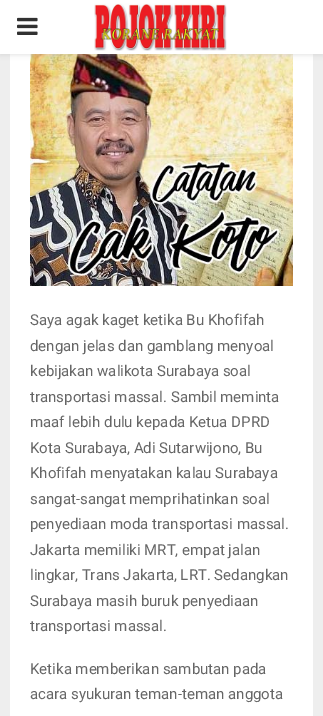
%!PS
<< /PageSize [323 716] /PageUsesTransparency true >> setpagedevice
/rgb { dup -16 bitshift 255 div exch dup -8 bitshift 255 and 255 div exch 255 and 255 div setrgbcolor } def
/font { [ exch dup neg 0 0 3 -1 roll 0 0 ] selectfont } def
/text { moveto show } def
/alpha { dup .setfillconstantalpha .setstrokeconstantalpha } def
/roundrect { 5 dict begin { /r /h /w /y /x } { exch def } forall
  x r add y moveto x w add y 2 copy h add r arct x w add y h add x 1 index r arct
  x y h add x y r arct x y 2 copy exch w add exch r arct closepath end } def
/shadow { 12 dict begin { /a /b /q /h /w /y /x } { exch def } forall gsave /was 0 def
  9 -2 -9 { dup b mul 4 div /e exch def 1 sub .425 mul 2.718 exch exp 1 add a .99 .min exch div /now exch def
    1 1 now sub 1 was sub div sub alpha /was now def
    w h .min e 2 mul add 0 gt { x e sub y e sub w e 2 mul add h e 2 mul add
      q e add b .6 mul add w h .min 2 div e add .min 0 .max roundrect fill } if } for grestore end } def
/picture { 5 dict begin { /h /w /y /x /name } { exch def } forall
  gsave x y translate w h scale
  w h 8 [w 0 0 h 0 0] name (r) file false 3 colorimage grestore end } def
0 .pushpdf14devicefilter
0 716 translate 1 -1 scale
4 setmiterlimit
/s1 { /Roboto-Regular 15 font 16#666666 rgb } def
16#EEEEEE rgb
0 0 323 716 rectfill
16#FFFFFF rgb
10 54 303 662 rectfill
(pic3.raw) 30 54 263 232 picture
16#BEBEBE rgb
0 1 323 54 0 2.5 0.46 shadow
16#FFFFFF rgb
0 0 323 54 rectfill
(pic1.raw) 17 17 21 18 picture
(pic2.raw) 94 3 133 48 picture
s1
(Saya agak kaget ketika Bu Khofifah) 30 325 text
(dengan jelas dan gamblang menyoal) 30 351 text
(kebijakan walikota Surabaya soal) 30 376 text
(transportasi massal. Sambil meminta) 30 402 text
(maaf lebih dulu kepada Ketua DPRD) 30 427 text
(Kota Surabaya, Adi Sutarwijono, Bu) 30 453 text
(Khofifah menyatakan kalau Surabaya) 30 478 text
(sangat-sangat memprihatinkan soal) 30 504 text
(penyediaan moda transportasi massal.) 30 529 text
(Jakarta memiliki MRT, empat jalan) 30 555 text
(lingkar, Trans Jakarta, LRT. Sedangkan) 30 580 text
(Surabaya masih buruk penyediaan) 30 606 text
(transportasi massal.) 30 631 text
(Ketika memberikan sambutan pada) 30 674 text
(acara syukuran teman-teman anggota) 30 699 text
.poppdf14devicefilter showpage
